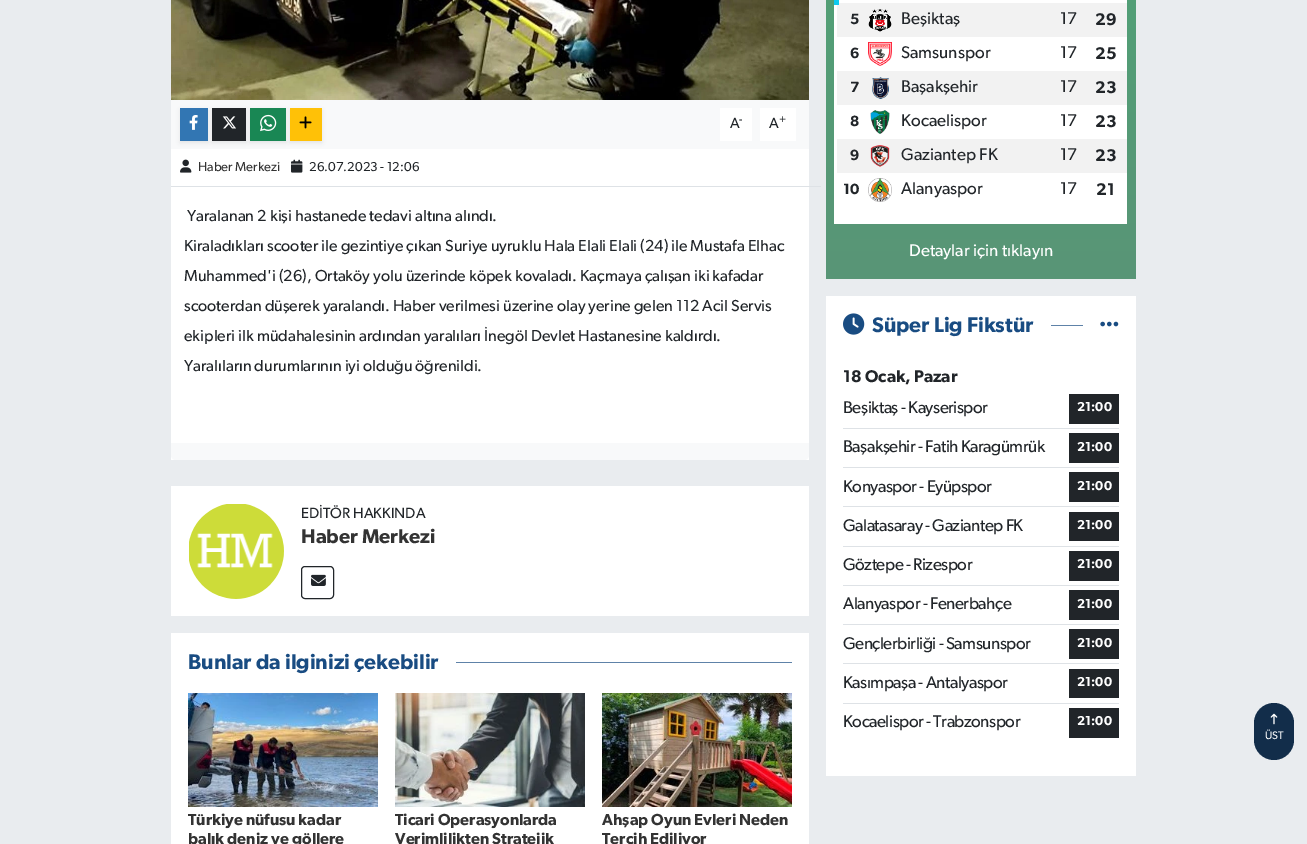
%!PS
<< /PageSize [1307 844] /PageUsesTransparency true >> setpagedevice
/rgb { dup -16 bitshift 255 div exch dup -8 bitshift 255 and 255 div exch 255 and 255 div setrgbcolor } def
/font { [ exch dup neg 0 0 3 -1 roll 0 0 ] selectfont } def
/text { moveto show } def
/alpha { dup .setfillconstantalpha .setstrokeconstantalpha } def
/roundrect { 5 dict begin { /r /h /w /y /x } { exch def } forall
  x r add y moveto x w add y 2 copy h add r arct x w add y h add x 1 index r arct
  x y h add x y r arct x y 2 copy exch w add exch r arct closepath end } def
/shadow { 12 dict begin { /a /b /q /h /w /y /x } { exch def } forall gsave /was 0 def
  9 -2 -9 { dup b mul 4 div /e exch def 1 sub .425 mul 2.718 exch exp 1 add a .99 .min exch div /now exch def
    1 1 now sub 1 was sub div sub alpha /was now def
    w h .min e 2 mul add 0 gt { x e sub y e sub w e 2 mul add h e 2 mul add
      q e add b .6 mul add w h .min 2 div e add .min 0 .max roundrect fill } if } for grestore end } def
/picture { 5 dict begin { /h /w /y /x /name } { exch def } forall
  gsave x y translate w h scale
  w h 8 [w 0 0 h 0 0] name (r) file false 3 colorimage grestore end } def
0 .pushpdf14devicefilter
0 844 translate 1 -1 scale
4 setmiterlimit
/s1 { /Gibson-Regular 14.9 font 16#212529 rgb } def
/s2 { /Gibson-Regular 11 font 16#212529 rgb } def
/s3 { /Gibson-Regular 13 font 16#333333 rgb } def
/s4 { /Gibson-Regular 13 font 16#212529 rgb } def
/s5 { /Gibson-Regular 16 font 16#212529 rgb } def
/s6 { /Gibson-SemiBold 20 font 16#333333 rgb } def
/s7 { /Gibson-SemiBold 21.25 font 16#194C82 rgb } def
/s8 { /Gibson-SemiBold 16 font 16#333333 rgb } def
/s9 { /Gibson-SemiBold 14.9 font 16#212529 rgb } def
/s10 { /Gibson-Regular 17 font 16#212529 rgb } def
/s11 { /Gibson-SemiBold 17 font 16#212529 rgb } def
/s12 { /Gibson-Regular 17 font 16#FFFFFF rgb } def
/s13 { /Gibson-SemiBold 13 font 16#FFFFFF rgb } def
/s14 { /Gibson-Regular 11 font 16#FFFFFF rgb } def
16#E9ECEF rgb
0 0 1307 844 rectfill
16#FFFFFF rgb
171 149 638 311 rectfill
(pic1.raw) 171 0 638 100 picture
16#F8F9FA rgb
171 100 638 49 rectfill
16#000000 rgb
180 110 28 33 0 2 0.07 shadow
16#3276B3 rgb
180 108 28 33 rectfill
(pic2.raw) 189 115 9 15 picture
16#000000 rgb
212 110 34 33 0 2 0.07 shadow
16#212529 rgb
212 108 34 33 rectfill
(pic3.raw) 222 116 14 13 picture
16#000000 rgb
250 110 36 33 0 2 0.07 shadow
16#198754 rgb
250 108 36 33 rectfill
(pic4.raw) 260 114 17 18 picture
16#000000 rgb
290 110 32 33 0 2 0.07 shadow
16#FFC107 rgb
290 108 32 33 rectfill
(pic5.raw) 299 116 13 13 picture
16#FFFFFF rgb
720 108 32 33 rectfill
s1
(A) 730 128 text
s2
(-) 739 123 text
16#FFFFFF rgb
760 108 36 33 rectfill
s1
(A) 769 128 text
s2
(+) 779 123 text
16#DEE2E6 rgb
171 186 650 1 rectfill
(pic6.raw) 180 159 12 14 picture
s3
(Haber Merkezi) 198 171 text
(pic7.raw) 291 159 12 14 picture
s4
(26.07.2023 - 12:06) 309 171 text
s5
(Yaralanan 2 kişi hastanede tedavi altına alındı.) 187 221 text
(Kiraladıkları scooter ile gezintiye çıkan Suriye uyruklu Hala Elali Elali \(24\) ile Mustafa Elhac) 184 251 text
(Muhammed'i \(26\), Ortaköy yolu üzerinde köpek kovaladı. Kaçmaya çalışan iki kafadar) 184 281 text
(scooterdan düşerek yaralandı. Haber verilmesi üzerine olay yerine gelen 112 Acil Servis) 184 311 text
(ekipleri ilk müdahalesinin ardından yaralıları İnegöl Devlet Hastanesine kaldırdı.) 184 341 text
(Yaralıların durumlarının iyi olduğu öğrenildi.) 184 371 text
16#F8F9FA rgb
171 443 moveto 809 443 lineto 809 455 lineto 809 458 807 460 804 460 curveto 176 460 lineto 173 460 171 458 171 455 curveto closepath fill
16#FFFFFF rgb
171 486 638 130 rectfill
(pic8.raw) 189 504 95 95 picture
s1
(EDİTÖR HAKKINDA) 301 518 text
s6
(Haber Merkezi) 301 543 text
16#212529 rgb
301.5 566.5 32 32 3.5 roundrect stroke
(pic9.raw) 311 574 15 12 picture
16#FFFFFF rgb
171 633 638 211 rectfill
s7
(Bunlar da ilginizi çekebilir) 188 669 text
16#5E82A8 rgb
456 662 336 1 rectfill
(pic10.raw) 188 693 190 114 picture
s8
(Türkiye nüfusu kadar) 188 825 text
(balık deniz ve göllere) 188 844 text
(pic11.raw) 395 693 190 114 picture
(Ticari Operasyonlarda) 395 825 text
(Verimlilikten Stratejik) 395 844 text
(pic12.raw) 602 693 190 114 picture
(Ahşap Oyun Evleri Neden) 602 825 text
(Tercih Ediliyor) 602 844 text
gsave 826 0 moveto 1136 0 lineto 1136 279 lineto 826 279 lineto closepath clip newpath
<< /ShadingType 2 /ColorSpace /DeviceRGB /Coords [981 -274 981 279] /Extend [true true] /Function << /FunctionType 2 /Domain [0 1] /C0 [0.294 0.663 0.471] /C1 [0.349 0.584 0.463] /N 1 >> >> shfill grestore
16#FFFFFF rgb
834 0 293 224 rectfill
16#F2F2F2 rgb
837 3 290 34 rectfill
16#0DCAF0 rgb
834 0 5 5 rectfill
s9
(5) 850 24 text
(pic13.raw) 868 9 24 23 picture
s10
(Beşiktaş) 901 24 text
(17) 1060 24 text
s11
(29) 1095 25 text
s9
(6) 850 58 text
(pic14.raw) 868 42 24 24 picture
s10
(Samsunspor) 901 58 text
(17) 1060 58 text
s11
(25) 1095 59 text
16#F2F2F2 rgb
837 71 290 34 rectfill
s9
(7) 850 92 text
(pic15.raw) 872 77 17 22 picture
s10
(Başakşehir) 901 92 text
(17) 1060 92 text
s11
(23) 1095 93 text
s9
(8) 850 126 text
(pic16.raw) 870 110 20 24 picture
s10
(Kocaelispor) 901 126 text
(17) 1060 126 text
s11
(23) 1095 127 text
16#F2F2F2 rgb
837 139 290 34 rectfill
s9
(9) 850 160 text
(pic17.raw) 870 145 20 22 picture
s10
(Gaziantep FK) 901 160 text
(17) 1060 160 text
s11
(23) 1095 161 text
s9
(10) 843 194 text
(pic18.raw) 868 178 24 24 picture
s10
(Alanyaspor) 901 194 text
(17) 1060 194 text
s11
(21) 1096 195 text
s12
(Detaylar için tıklayın) 909 256 text
826 296 310 480 rectfill
(pic19.raw) 843 313 22 22 picture
s7
(Süper Lig Fikstür) 872 332 text
16#5E82A8 rgb
1051 325 32 1 rectfill
(pic20.raw) 1100 321 19 6 picture
s11
(18 Ocak, Pazar) 843 382 text
16#DEE2E6 rgb
843 428 276 1 rectfill
/Gibson-Regular 17 font
16#212529 rgb
843 413 moveto -0.5 0 (Beşiktaş - Kayserispor) ashow
1069 394 50 30 rectfill
s13
(21:00) 1077 411 text
16#DEE2E6 rgb
843 467 276 1 rectfill
/Gibson-Regular 17 font
16#212529 rgb
843 452 moveto -0.5 0 (Başakşehir - Fatih Karagümrük) ashow
1069 433 50 30 rectfill
s13
(21:00) 1077 451 text
16#DEE2E6 rgb
843 506 276 1 rectfill
/Gibson-Regular 17 font
16#212529 rgb
843 492 moveto -0.5 0 (Konyaspor - Eyüpspor) ashow
1069 472 50 30 rectfill
s13
(21:00) 1077 490 text
16#DEE2E6 rgb
843 546 276 1 rectfill
/Gibson-Regular 17 font
16#212529 rgb
843 531 moveto -0.5 0 (Galatasaray - Gaziantep FK) ashow
1069 512 50 29 rectfill
s13
(21:00) 1077 529 text
16#DEE2E6 rgb
843 585 276 1 rectfill
/Gibson-Regular 17 font
16#212529 rgb
843 570 moveto -0.5 0 (Göztepe - Rizespor) ashow
1069 551 50 30 rectfill
s13
(21:00) 1077 568 text
16#DEE2E6 rgb
843 624 276 1 rectfill
/Gibson-Regular 17 font
16#212529 rgb
843 609 moveto -0.5 0 (Alanyaspor - Fenerbahçe) ashow
1069 590 50 30 rectfill
s13
(21:00) 1077 608 text
16#DEE2E6 rgb
843 663 276 1 rectfill
/Gibson-Regular 17 font
16#212529 rgb
843 649 moveto -0.5 0 (Gençlerbirliği - Samsunspor) ashow
1069 629 50 30 rectfill
s13
(21:00) 1077 647 text
16#DEE2E6 rgb
843 703 276 1 rectfill
/Gibson-Regular 17 font
16#212529 rgb
843 688 moveto -0.5 0 (Kasımpaşa - Antalyaspor) ashow
1069 669 50 29 rectfill
s13
(21:00) 1077 686 text
/Gibson-Regular 17 font
16#212529 rgb
843 727 moveto -0.5 0 (Kocaelispor - Trabzonspor) ashow
1069 708 50 30 rectfill
s13
(21:00) 1077 725 text
16#122D4A rgb
1254 703 40 57 20 roundrect fill
(pic21.raw) 1270 713 8 12 picture
s14
(ÜST) 1265 739 text
.poppdf14devicefilter showpage
